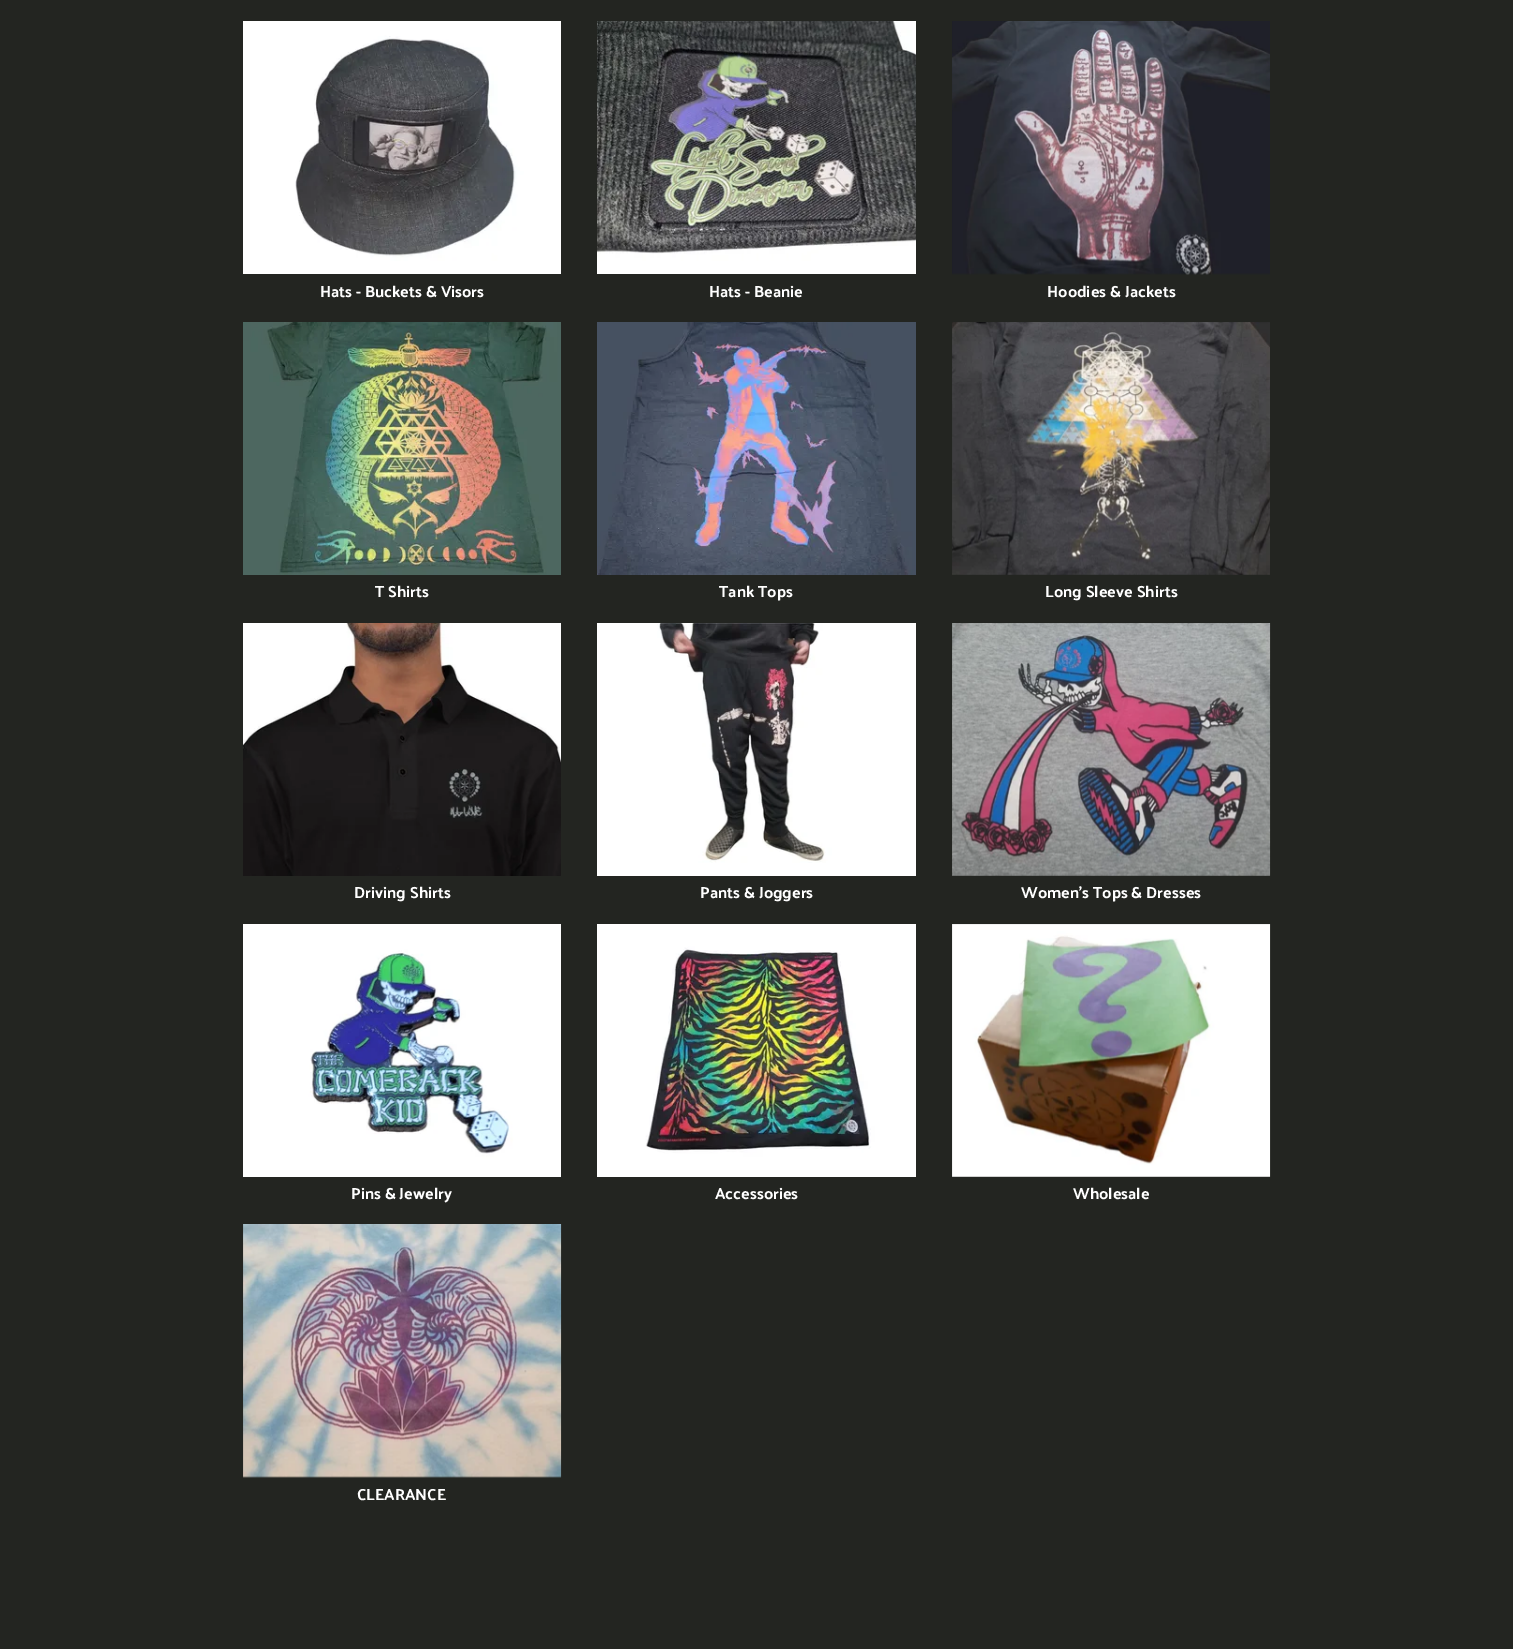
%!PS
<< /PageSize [1513 1649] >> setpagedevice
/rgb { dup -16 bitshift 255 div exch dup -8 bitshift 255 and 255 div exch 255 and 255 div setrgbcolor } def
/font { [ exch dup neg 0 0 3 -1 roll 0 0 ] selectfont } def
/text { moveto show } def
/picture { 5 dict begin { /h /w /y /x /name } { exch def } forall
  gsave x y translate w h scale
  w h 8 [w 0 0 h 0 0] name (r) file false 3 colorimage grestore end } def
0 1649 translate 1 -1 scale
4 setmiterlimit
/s1 { /PalanquinDark-Regular 16 font 16#FFFFFF rgb } def
16#232521 rgb
0 0 1513 1649 rectfill
(pic1.raw) 243 21 318 253 picture
s1
(Hats - Buckets & Visors) 320 297 text
(pic2.raw) 597 21 319 253 picture
(Hats - Beanie) 709 297 text
(pic3.raw) 952 21 318 254 picture
(Hoodies & Jackets) 1047 297 text
(pic4.raw) 243 322 318 253 picture
(T Shirts) 375 597 text
(pic5.raw) 597 322 319 253 picture
(Tank Tops) 719 597 text
(pic6.raw) 952 322 318 253 picture
(Long Sleeve Shirts) 1045 597 text
(pic7.raw) 243 623 318 253 picture
(Driving Shirts) 354 898 text
(pic8.raw) 597 623 319 253 picture
(Pants & Joggers) 700 898 text
(pic9.raw) 952 623 319 253 picture
(Women's Tops & Dresses) 1021 898 text
(pic10.raw) 243 924 318 253 picture
(Pins & Jewelry) 351 1199 text
(pic11.raw) 597 924 319 253 picture
(Accessories) 715 1199 text
(pic12.raw) 952 924 319 253 picture
(Wholesale) 1073 1199 text
(pic13.raw) 243 1224 319 254 picture
(CLEARANCE) 357 1500 text
showpage
